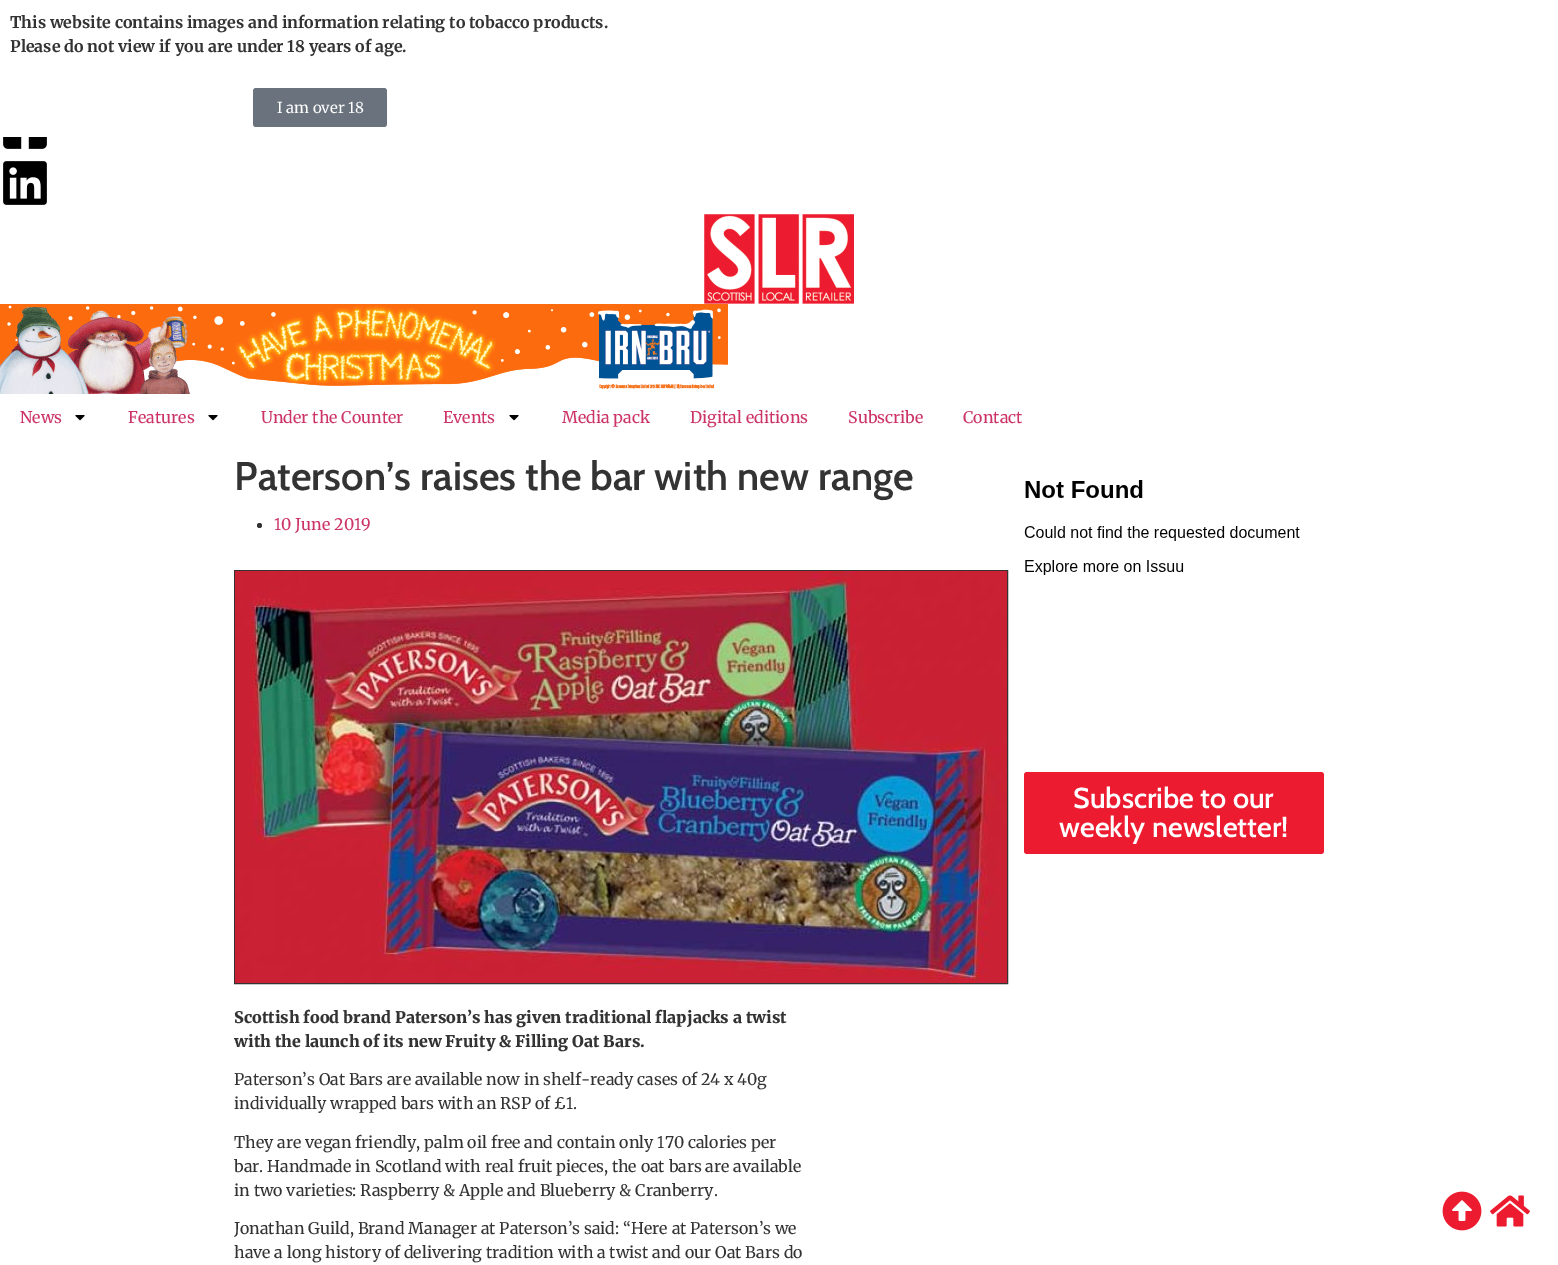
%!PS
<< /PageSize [1558 1265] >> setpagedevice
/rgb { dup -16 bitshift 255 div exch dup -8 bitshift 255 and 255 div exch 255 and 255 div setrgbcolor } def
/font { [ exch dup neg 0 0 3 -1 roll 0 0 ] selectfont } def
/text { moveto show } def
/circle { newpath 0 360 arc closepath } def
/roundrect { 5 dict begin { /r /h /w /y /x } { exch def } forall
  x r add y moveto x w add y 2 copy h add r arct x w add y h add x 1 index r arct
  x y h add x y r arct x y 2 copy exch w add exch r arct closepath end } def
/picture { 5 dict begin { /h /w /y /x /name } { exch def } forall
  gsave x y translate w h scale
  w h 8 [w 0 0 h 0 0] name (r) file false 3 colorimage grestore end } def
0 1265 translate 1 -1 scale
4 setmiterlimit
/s1 { /Merriweather-Bold 16 font 16#333333 rgb } def
/s2 { /Merriweather-Regular 15 font 16#FFFFFF rgb } def
/s3 { /Merriweather-Regular 16 font 16#CC3366 rgb } def
/s4 { /Cabin-SemiBold 40 font 16#333333 rgb } def
/s5 { /Merriweather-Black 16 font 16#333333 rgb } def
/s6 { /Merriweather-Regular 16 font 16#333333 rgb } def
/s7 { /Cabin-SemiBold 28.75 font 16#FFFFFF rgb } def
16#FFFFFF rgb
0 0 1558 1265 rectfill
s1
(This website contains images and information relating to tobacco products.) 10 28 text
(Please do not view if you are under 18 years of age.) 10 52 text
16#69727D rgb
253 88 134 39 3 roundrect fill
s2
(I am over 18) 277 113 text
(pic1.raw) 3 137 44 12 picture
(pic2.raw) 3 161 44 44 picture
(pic3.raw) 704 214 150 90 picture
(pic4.raw) 0 304 728 90 picture
s3
(News) 20 423 text
(pic5.raw) 75 415 10 6 picture
(Features) 128 423 text
(pic5.raw) 208 415 10 6 picture
(Under the Counter) 261 423 text
(Events) 443 423 text
(pic5.raw) 509 415 10 6 picture
(Media pack) 562 423 text
(Digital editions) 690 423 text
(Subscribe) 848 423 text
(Contact) 963 423 text
s4
(Paterson’s raises the bar with new range) 234 490 text
259.5 525.5 2.5 circle fill
s3
(10 June 2019) 274 530 text
16#333333 rgb
234.5 570.5 773 413 rectstroke
(pic6.raw) 235 571 772 412 picture
s5
(Scottish food brand Paterson’s has given traditional flapjacks a twist) 234 1023 text
(with the launch of its new Fruity & Filling Oat Bars.) 234 1047 text
s6
(Paterson’s Oat Bars are available now in shelf-ready cases of 24 x 40g) 234 1085 text
(individually wrapped bars with an RSP of £1.) 234 1109 text
(They are vegan friendly, palm oil free and contain only 170 calories per) 234 1148 text
(bar. Handmade in Scotland with real fruit pieces, the oat bars are available) 234 1172 text
(in two varieties: Raspberry & Apple and Blueberry & Cranberry.) 234 1196 text
(Jonathan Guild, Brand Manager at Paterson’s said: “Here at Paterson’s we) 234 1234 text
(have a long history of delivering tradition with a twist and our Oat Bars do) 234 1258 text
(pic7.raw) 1024 480 276 95 picture
16#ED1B2F rgb
1024 772 300 82 3 roundrect fill
s7
(Subscribe to our) 1073 808 text
(weekly newsletter!) 1059 837 text
(pic8.raw) 1442 1191 40 40 picture
(pic9.raw) 1490 1195 40 32 picture
showpage
